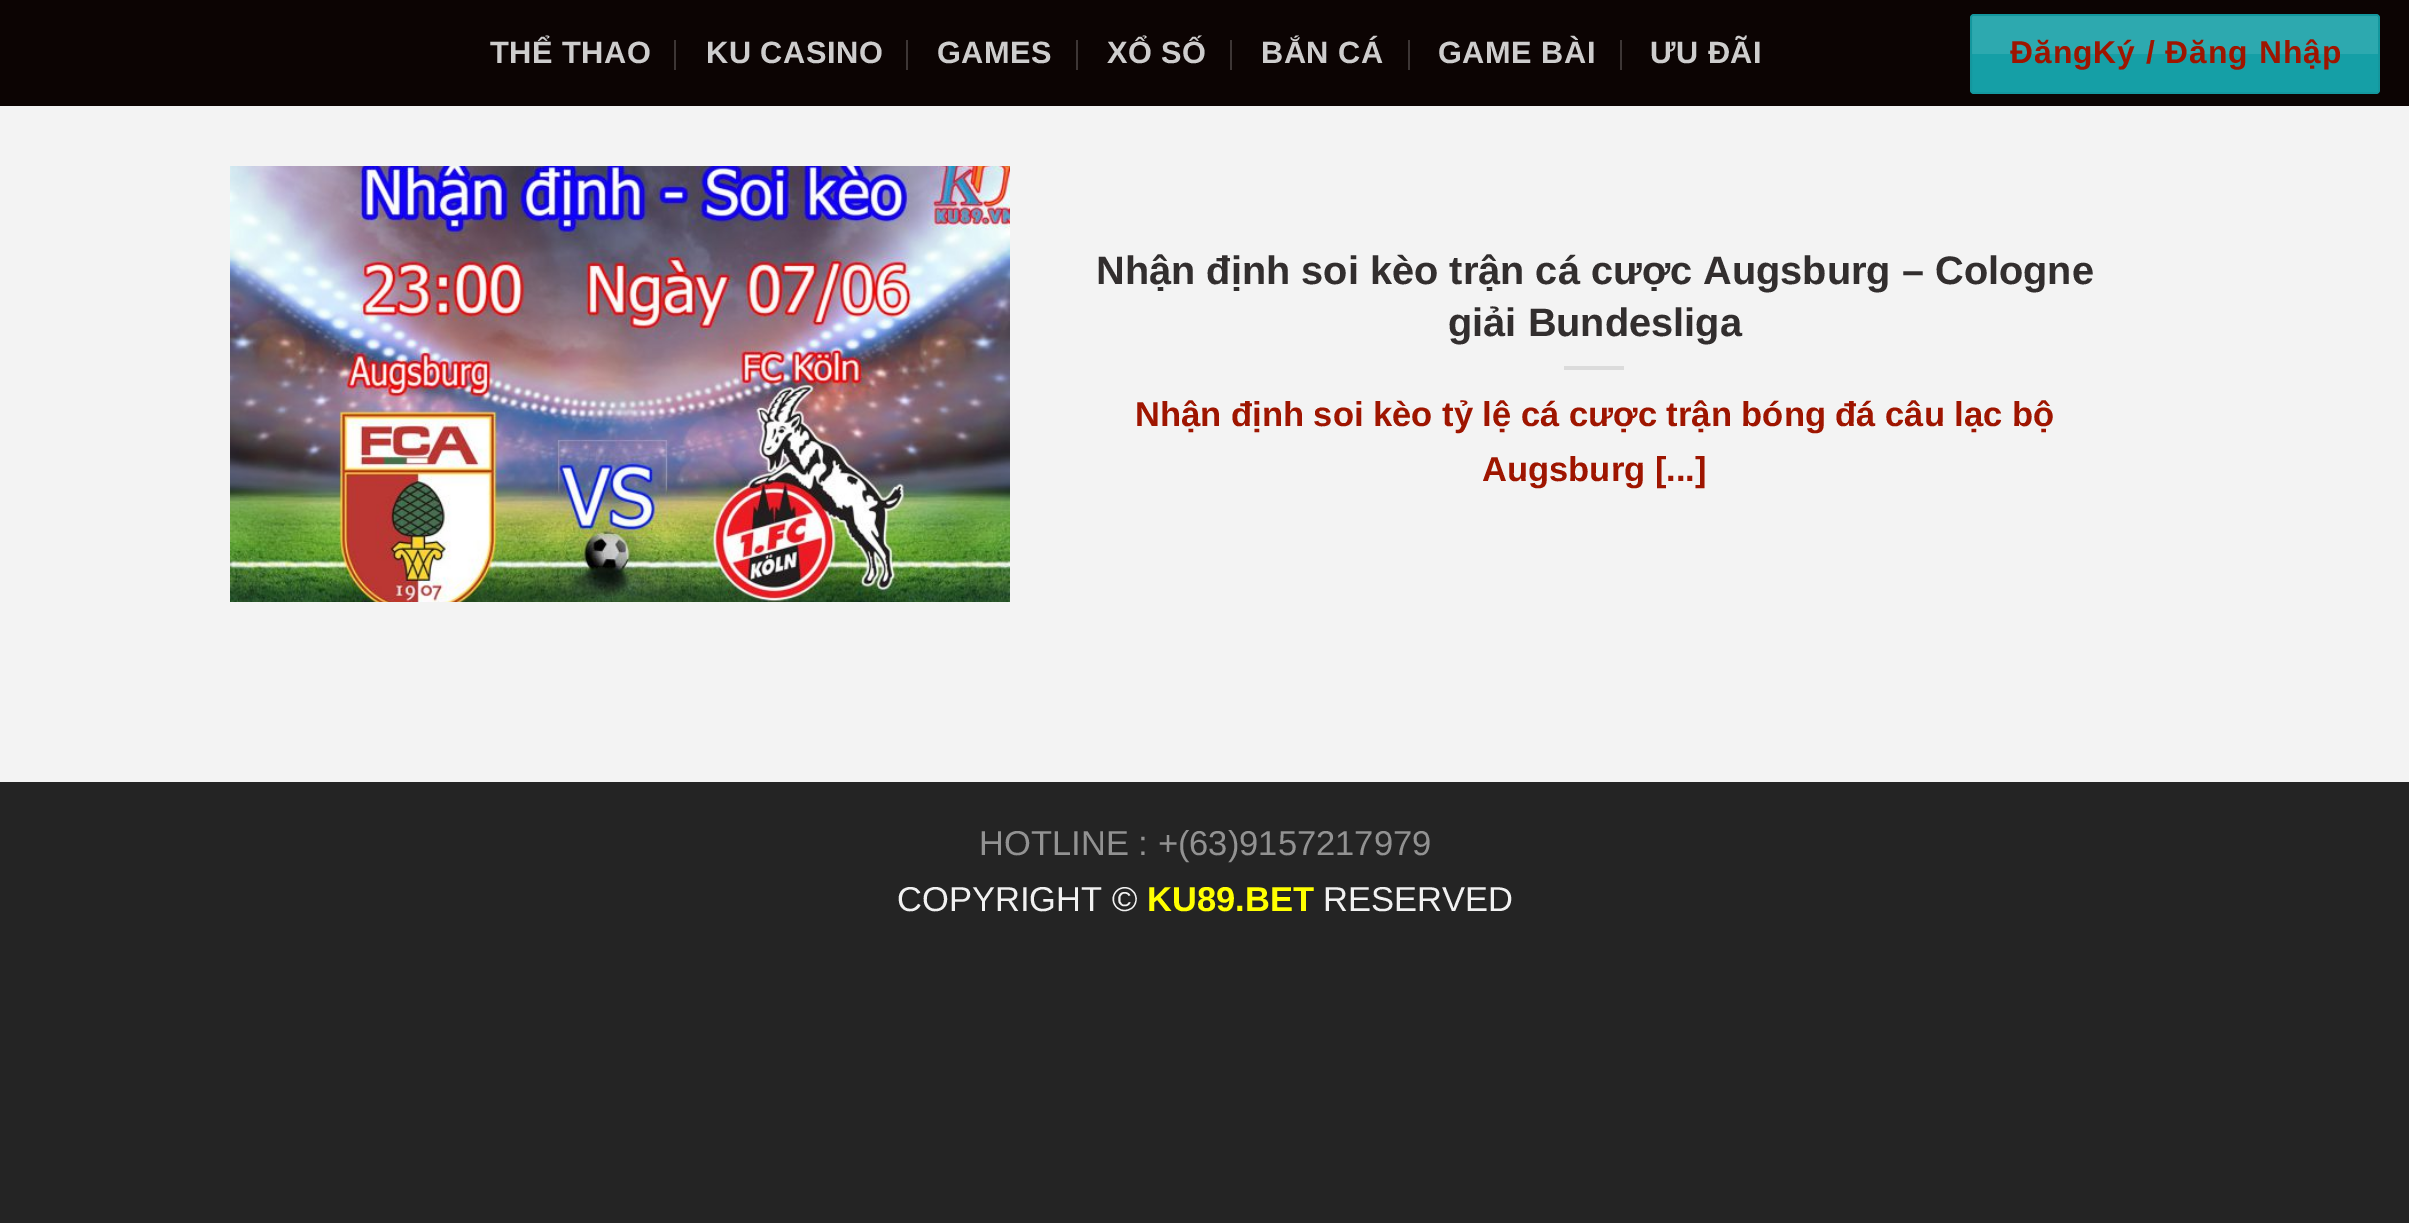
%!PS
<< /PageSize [2409 1223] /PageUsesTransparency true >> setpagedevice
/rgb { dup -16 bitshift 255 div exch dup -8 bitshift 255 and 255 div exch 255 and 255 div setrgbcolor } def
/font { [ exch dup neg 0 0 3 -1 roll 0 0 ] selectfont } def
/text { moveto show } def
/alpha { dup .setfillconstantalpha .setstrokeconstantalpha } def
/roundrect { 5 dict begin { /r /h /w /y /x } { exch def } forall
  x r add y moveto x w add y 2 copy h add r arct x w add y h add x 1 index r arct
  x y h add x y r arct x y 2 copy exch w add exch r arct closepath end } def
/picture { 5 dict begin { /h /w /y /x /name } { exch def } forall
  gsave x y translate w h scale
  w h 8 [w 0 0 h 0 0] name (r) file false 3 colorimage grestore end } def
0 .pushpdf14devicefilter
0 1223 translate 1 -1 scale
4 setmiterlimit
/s1 { /LiberationSans-Bold 39.75 font 16#322E2E rgb } def
/s2 { /LiberationSans-Bold 34.55 font 16#9E1500 rgb } def
/s3 { /LiberationSans-Regular 34.55 font 16#929292 rgb } def
/s4 { /LiberationSans-Regular 34.55 font 16#F1F1F1 rgb } def
/s5 { /LiberationSans-Bold 34.55 font 16#FFFF00 rgb } def
16#242424 rgb
0 0 2409 1223 rectfill
16#0C0403 rgb
0 0 2409 106 rectfill
/LiberationSans-Bold 30.75 font
16#CECDCD rgb
490 63 moveto 0.5 0 (THỂ THAO) ashow
16#3D3635 rgb
674 40 2 30 rectfill
16#CECDCD rgb
706 63 moveto 0.5 0 (KU CASINO) ashow
16#3D3635 rgb
906 40 2 30 rectfill
16#CECDCD rgb
937 63 moveto 0.5 0 (GAMES) ashow
16#3D3635 rgb
1076 40 2 30 rectfill
16#CECDCD rgb
1107 63 moveto 0.5 0 (XỔ SỐ) ashow
16#3D3635 rgb
1230 40 2 30 rectfill
16#CECDCD rgb
1261 63 moveto 0.5 0 (BẮN CÁ) ashow
16#3D3635 rgb
1408 40 2 30 rectfill
16#CECDCD rgb
1438 63 moveto 0.5 0 (GAME BÀI) ashow
16#3D3635 rgb
1620 40 2 30 rectfill
16#CECDCD rgb
1650 63 moveto 0.5 0 (ƯU ĐÃI) ashow
16#159FA6 rgb
1970 14 410 80 4 roundrect fill
0.05 alpha
16#000000 rgb
2 setlinewidth
1971 15 408 78 rectstroke
0.1 alpha
16#FFFFFF rgb
1974 16 moveto 2376 16 lineto 2377 16 2378 17 2378 18 curveto 2378 54 lineto 1972 54 lineto 1972 18 lineto 1972 17 1973 16 1974 16 curveto closepath fill
/LiberationSans-Bold 31.75 font
1 alpha
16#9E1500 rgb
2010 63 moveto 1 0 (ĐăngKý / Đăng Nhập) ashow
16#F3F3F3 rgb
0 106 2409 676 rectfill
(pic1.raw) 230 166 780 436 picture
s1
(Nhận định soi kèo trận cá cược Augsburg – Cologne) 1096 284 text
(giải Bundesliga) 1448 336 text
16#DBDBDB rgb
1564 366 60 4 rectfill
s2
(Nhận định soi kèo tỷ lệ cá cược trận bóng đá câu lạc bộ) 1135 426 text
(Augsburg [...]) 1482 481 text
s3
(HOTLINE : +\(63\)9157217979) 979 855 text
s4
(COPYRIGHT ©) 897 911 text
s5
(KU89.BET) 1147 911 text
s4
(RESERVED) 1323 911 text
.poppdf14devicefilter showpage
